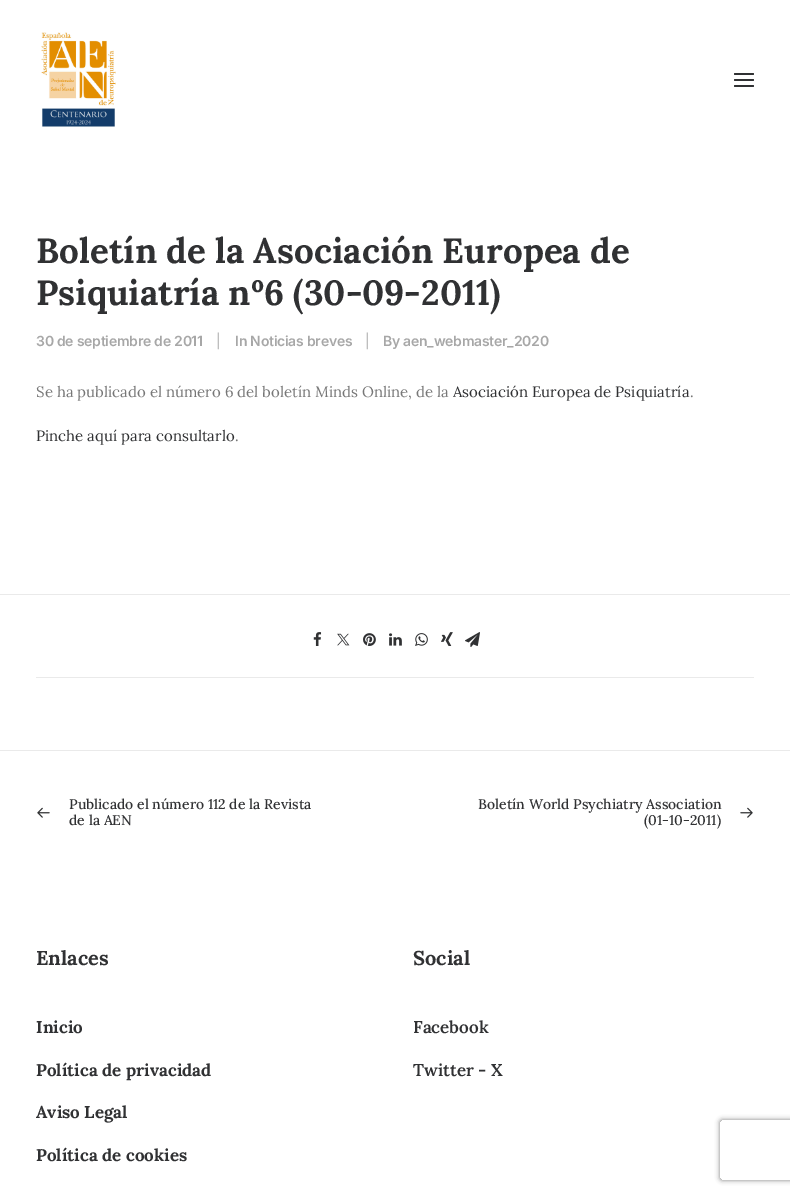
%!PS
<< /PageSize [790 1194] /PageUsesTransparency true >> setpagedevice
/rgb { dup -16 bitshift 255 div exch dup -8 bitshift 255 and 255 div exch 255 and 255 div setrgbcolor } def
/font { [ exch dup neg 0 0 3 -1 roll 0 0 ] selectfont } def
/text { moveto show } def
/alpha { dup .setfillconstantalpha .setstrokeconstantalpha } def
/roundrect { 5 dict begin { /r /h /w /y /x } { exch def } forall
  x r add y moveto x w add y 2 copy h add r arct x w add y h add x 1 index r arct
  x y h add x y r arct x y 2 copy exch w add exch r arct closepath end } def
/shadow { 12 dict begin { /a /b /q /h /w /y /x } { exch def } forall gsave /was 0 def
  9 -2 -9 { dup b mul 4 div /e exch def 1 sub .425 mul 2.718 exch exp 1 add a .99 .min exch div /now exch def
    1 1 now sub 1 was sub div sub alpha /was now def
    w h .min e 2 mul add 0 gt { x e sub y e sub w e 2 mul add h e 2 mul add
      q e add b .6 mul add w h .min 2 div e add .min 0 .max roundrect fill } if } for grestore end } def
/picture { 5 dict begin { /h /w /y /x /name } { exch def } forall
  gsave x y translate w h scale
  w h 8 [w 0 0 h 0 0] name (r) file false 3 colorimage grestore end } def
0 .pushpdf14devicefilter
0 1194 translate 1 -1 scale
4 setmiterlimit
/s1 { /Lora-Bold 35 font 16#303133 rgb } def
/s2 { /Lora-Regular 15 font 16#777777 rgb } def
/s3 { /Lora-Regular 15 font 16#303133 rgb } def
/s4 { /Lora-Medium 14 font 16#303133 rgb } def
/s5 { /Lora-Bold 20 font 16#303133 rgb } def
/s6 { /Lora-Bold 17 font 16#303133 rgb } def
/s7 { /Lora-SemiBold 17 font 16#303133 rgb } def
16#FFFFFF rgb
0 0 790 1194 rectfill
(pic1.raw) 41 32 75 95 picture
16#303133 rgb
734 79 20 2 1 roundrect fill
734 73 20 2 1 roundrect fill
734 85 20 2 1 roundrect fill
s1
(Boletín de la Asociación Europea de) 36 263 text
(Psiquiatría nº6 \(30-09-2011\)) 36 305 text
/Inter-SemiBold 14 font
16#A7A7A7 rgb
36 346 moveto -0.25 0 (30 de septiembre de 2011) ashow
/Inter-Regular 14 font
216 346 moveto -0.25 0 (|) ashow
/Inter-SemiBold 14 font
235 346 moveto -0.25 0 (In Noticias breves) ashow
/Inter-Regular 14 font
365 346 moveto -0.25 0 (|) ashow
/Inter-SemiBold 14 font
383 346 moveto -0.25 0 (By aen_webmaster_2020) ashow
s2
(Se ha publicado el número 6 del boletín Minds Online, de la) 36 397 text
s3
(Asociación Europea de Psiquiatría) 453 397 text
s2
(.) 690 397 text
s3
(Pinche aquí para consultarlo) 36 441 text
s2
(.) 235 441 text
16#EAEAEA rgb
0 594 790 1 rectfill
36 677 718 1 rectfill
(pic2.raw) 313 632 9 14 picture
(pic3.raw) 337 633 13 13 picture
(pic4.raw) 363 633 13 13 picture
(pic5.raw) 389 633 13 13 picture
(pic6.raw) 415 633 13 13 picture
(pic7.raw) 441 632 12 14 picture
(pic8.raw) 465 632 15 15 picture
0 750 790 1 rectfill
(pic9.raw) 37 807 13 11 picture
s4
(Publicado el número 112 de la Revista) 69 809 text
(de la AEN) 69 825 text
(Boletín World Psychiatry Association) 478 809 text
(\(01-10-2011\)) 644 825 text
(pic10.raw) 740 807 13 11 picture
s5
(Enlaces) 36 965 text
s6
(Inicio) 36 1033 text
(Política de privacidad) 36 1076 text
(Aviso Legal) 36 1118 text
(Política de cookies) 36 1161 text
s5
(Social) 413 965 text
s7
(Facebook) 413 1033 text
(Twitter - X) 413 1076 text
gsave
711 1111 moveto 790 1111 lineto 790 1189 lineto 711 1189 lineto closepath 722 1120 moveto 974 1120 lineto 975 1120 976 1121 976 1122 curveto 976 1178 lineto 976 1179 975 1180 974 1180 curveto 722 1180 lineto 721 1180 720 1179 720 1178 curveto 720 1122 lineto 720 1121 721 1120 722 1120 curveto closepath eoclip newpath
16#808080 rgb
720 1120 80 60 2 2.5 1 shadow
grestore
.poppdf14devicefilter showpage
